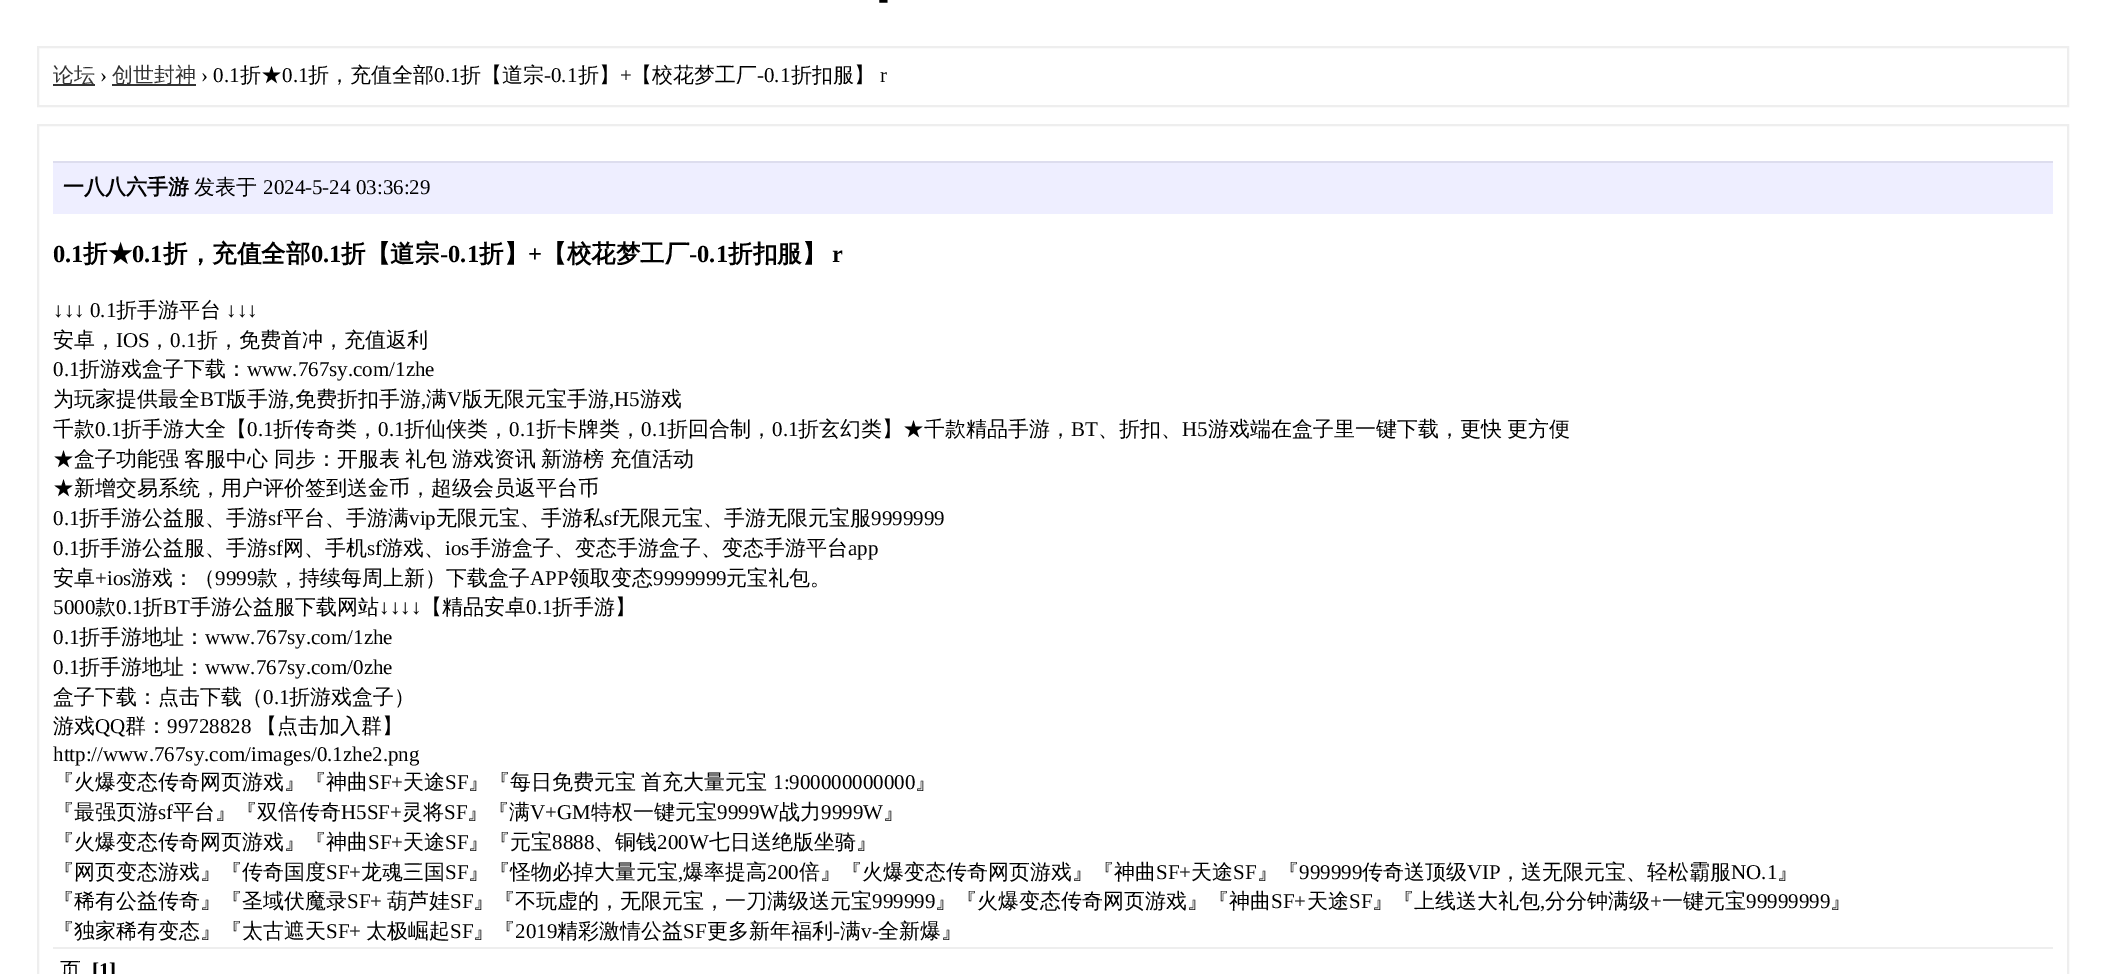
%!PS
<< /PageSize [2104 974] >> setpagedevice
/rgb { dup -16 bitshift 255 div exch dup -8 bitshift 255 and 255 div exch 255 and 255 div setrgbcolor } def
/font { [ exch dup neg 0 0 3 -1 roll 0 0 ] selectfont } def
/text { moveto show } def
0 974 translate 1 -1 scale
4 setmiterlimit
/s1 { /LiberationSerif-Bold 32 font 16#000000 rgb } def
/s2 { /WenQuanYiZenHei-Medium 21 font 16#333333 rgb } def
/s3 { /LiberationSerif-Regular 21 font 16#000000 rgb } def
/s4 { /WenQuanYiZenHei-Medium 21 font 16#000000 rgb } def
/s5 { /WenQuanYiZenHei-Bold 21 font 16#000000 rgb } def
/s6 { /LiberationSerif-Bold 24.5 font 16#000000 rgb } def
/s7 { /WenQuanYiZenHei-Bold 24.5 font 16#000000 rgb } def
/s8 { /LiberationSerif-Bold 21 font 16#000000 rgb } def
16#FFFFFF rgb
0 0 2104 974 rectfill
s1
(-) 878 9 text
16#EEEEEE rgb
2 setlinewidth
38 47 2030 59 rectstroke
16#333333 rgb
53 84 42 2 rectfill
s2
(论坛) 53 82 text
s3
(›) 100 82 text
16#333333 rgb
112 84 84 2 rectfill
s2
(创世封神) 112 82 text
s3
(› 0.1) 201 82 text
s4
(折★) 240 82 text
s3
(0.1) 282 82 text
s4
(折，充值全部) 308 82 text
s3
(0.1) 434 82 text
s4
(折【道宗) 460 82 text
s3
(-0.1) 544 82 text
s4
(折】) 578 82 text
s3
(+) 620 82 text
s4
(【校花梦工厂) 631 82 text
s3
(-0.1) 757 82 text
s4
(折扣服】) 791 82 text
s3
(r) 880 82 text
16#EEEEEE rgb
38 125 2030 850 rectstroke
16#EEEEFF rgb
53 163 2000 51 rectfill
16#DDDDEE rgb
53 161 2000 2 rectfill
s5
(一八八六手游) 63 194 text
s4
(发表于) 194 194 text
s3
(2024-5-24 03:36:29) 263 194 text
s6
(0.1) 53 262 text
s7
(折★) 83 262 text
s6
(0.1) 132 262 text
s7
(折，充值全部) 163 262 text
s6
(0.1) 311 262 text
s7
(折【道宗) 341 262 text
s6
(-0.1) 440 262 text
s7
(折】) 479 262 text
s6
(+) 528 262 text
s7
(【校花梦工厂) 542 262 text
s6
(-0.1) 689 262 text
s7
(折扣服】) 728 262 text
s6
(r) 832 262 text
s3
(↓↓↓ 0.1) 53 317 text
s4
(折手游平台) 116 317 text
s3
(↓↓↓) 226 317 text
s4
(安卓，) 53 347 text
s3
(IOS) 116 347 text
s4
(，) 149 347 text
s3
(0.1) 170 347 text
s4
(折，免费首冲，充值返利) 197 347 text
s3
(0.1) 53 376 text
s4
(折游戏盒子下载：) 79 376 text
s3
(www.767sy.com/1zhe) 247 376 text
s4
(为玩家提供最全) 53 406 text
s3
(BT) 200 406 text
s4
(版手游) 226 406 text
s3
(,) 289 406 text
s4
(免费折扣手游) 295 406 text
s3
(,) 421 406 text
s4
(满) 426 406 text
s3
(V) 447 406 text
s4
(版无限元宝手游) 462 406 text
s3
(,H5) 609 406 text
s4
(游戏) 640 406 text
(千款) 53 436 text
s3
(0.1) 95 436 text
s4
(折手游大全【) 121 436 text
s3
(0.1) 247 436 text
s4
(折传奇类，) 273 436 text
s3
(0.1) 378 436 text
s4
(折仙侠类，) 404 436 text
s3
(0.1) 509 436 text
s4
(折卡牌类，) 536 436 text
s3
(0.1) 641 436 text
s4
(折回合制，) 667 436 text
s3
(0.1) 772 436 text
s4
(折玄幻类】★千款精品手游，) 798 436 text
s3
(BT) 1071 436 text
s4
(、折扣、) 1098 436 text
s3
(H5) 1182 436 text
/WenQuanYiZenHei-Medium 21 font
1208 436 moveto -1 0 32 (游戏端在盒子里一键下载，更快 更方便) widthshow
53 466 moveto -1 0 32 (★盒子功能强 客服中心 同步：开服表 礼包 游戏资讯 新游榜 充值活动) widthshow
(★新增交易系统，用户评价签到送金币，超级会员返平台币) 53 495 text
s3
(0.1) 53 525 text
s4
(折手游公益服、手游) 79 525 text
s3
(sf) 268 525 text
s4
(平台、手游满) 283 525 text
s3
(vip) 409 525 text
s4
(无限元宝、手游私) 436 525 text
s3
(sf) 604 525 text
s4
(无限元宝、手游无限元宝服) 619 525 text
s3
(9999999) 871 525 text
(0.1) 53 555 text
s4
(折手游公益服、手游) 79 555 text
s3
(sf) 268 555 text
s4
(网、手机) 283 555 text
s3
(sf) 367 555 text
s4
(游戏、) 382 555 text
s3
(ios) 445 555 text
s4
(手游盒子、变态手游盒子、变态手游平台) 470 555 text
s3
(app) 848 555 text
s4
(安卓) 53 585 text
s3
(+ios) 95 585 text
s4
(游戏：（) 131 585 text
s3
(9999) 215 585 text
s4
(款，持续每周上新）下载盒子) 257 585 text
s3
(APP) 530 585 text
s4
(领取变态) 569 585 text
s3
(9999999) 653 585 text
s4
(元宝礼包。) 726 585 text
s3
(5000) 53 614 text
s4
(款) 95 614 text
s3
(0.1) 116 614 text
s4
(折) 142 614 text
s3
(BT) 163 614 text
s4
(手游公益服下载网站) 190 614 text
s3
(↓↓↓↓) 379 614 text
s4
(【精品安卓) 421 614 text
s3
(0.1) 526 614 text
s4
(折手游】) 552 614 text
s3
(0.1) 53 644 text
s4
(折手游地址：) 79 644 text
s3
(www.767sy.com/1zhe) 205 644 text
(0.1) 53 674 text
s4
(折手游地址：) 79 674 text
s3
(www.767sy.com/0zhe) 205 674 text
s4
(盒子下载：点击下载（) 53 704 text
s3
(0.1) 263 704 text
s4
(折游戏盒子）) 289 704 text
(游戏) 53 733 text
s3
(QQ) 95 733 text
s4
(群：) 125 733 text
s3
(99728828) 167 733 text
s4
(【点击加入群】) 256 733 text
s3
(http://www.767sy.com/images/0.1zhe2.png) 53 761 text
s4
(『火爆变态传奇网页游戏』『神曲) 53 789 text
s3
(SF+) 368 789 text
s4
(天途) 403 789 text
s3
(SF) 445 789 text
/WenQuanYiZenHei-Medium 21 font
468 789 moveto -1 0 32 (』『每日免费元宝 首充大量元宝) widthshow
s3
(1:900000000000) 773 789 text
s4
(』) 915 789 text
(『最强页游) 53 819 text
s3
(sf) 158 819 text
s4
(平台』『双倍传奇) 173 819 text
s3
(H5SF+) 341 819 text
s4
(灵将) 402 819 text
s3
(SF) 444 819 text
s4
(』『满) 467 819 text
s3
(V+GM) 530 819 text
s4
(特权一键元宝) 591 819 text
s3
(9999W) 717 819 text
s4
(战力) 779 819 text
s3
(9999W) 821 819 text
s4
(』) 883 819 text
(『火爆变态传奇网页游戏』『神曲) 53 849 text
s3
(SF+) 368 849 text
s4
(天途) 403 849 text
s3
(SF) 445 849 text
s4
(』『元宝) 468 849 text
s3
(8888) 552 849 text
s4
(、铜钱) 594 849 text
s3
(200W) 657 849 text
s4
(七日送绝版坐骑』) 709 849 text
(『网页变态游戏』『传奇国度) 53 879 text
s3
(SF+) 326 879 text
s4
(龙魂三国) 361 879 text
s3
(SF) 445 879 text
s4
(』『怪物必掉大量元宝) 468 879 text
s3
(,) 678 879 text
s4
(爆率提高) 683 879 text
s3
(200) 767 879 text
s4
(倍』『火爆变态传奇网页游戏』『神曲) 799 879 text
s3
(SF+) 1156 879 text
s4
(天途) 1191 879 text
s3
(SF) 1233 879 text
s4
(』『) 1257 879 text
s3
(999999) 1299 879 text
s4
(传奇送顶级) 1362 879 text
s3
(VIP) 1467 879 text
s4
(，送无限元宝、轻松霸服) 1500 879 text
s3
(NO.1) 1731 879 text
s4
(』) 1777 879 text
(『稀有公益传奇』『圣域伏魔录) 53 908 text
s3
(SF+) 347 908 text
s4
(葫芦娃) 387 908 text
s3
(SF) 450 908 text
s4
(』『不玩虚的，无限元宝，一刀满级送元宝) 473 908 text
s3
(999999) 872 908 text
s4
(』『火爆变态传奇网页游戏』『神曲) 935 908 text
s3
(SF+) 1271 908 text
s4
(天途) 1307 908 text
s3
(SF) 1349 908 text
s4
(』『上线送大礼包) 1372 908 text
s3
(,) 1540 908 text
s4
(分分钟满级) 1545 908 text
s3
(+) 1650 908 text
s4
(一键元宝) 1662 908 text
s3
(99999999) 1746 908 text
s4
(』) 1830 908 text
(『独家稀有变态』『太古遮天) 53 938 text
s3
(SF+) 326 938 text
s4
(太极崛起) 366 938 text
s3
(SF) 450 938 text
s4
(』『) 473 938 text
s3
(2019) 515 938 text
s4
(精彩激情公益) 557 938 text
s3
(SF) 683 938 text
s4
(更多新年福利) 707 938 text
s3
(-) 833 938 text
s4
(满) 840 938 text
s3
(v-) 861 938 text
s4
(全新爆』) 878 938 text
16#EEEEEE rgb
53 947 2000 2 rectfill
s4
(页) 60 977 text
s8
([1]) 92 977 text
showpage
